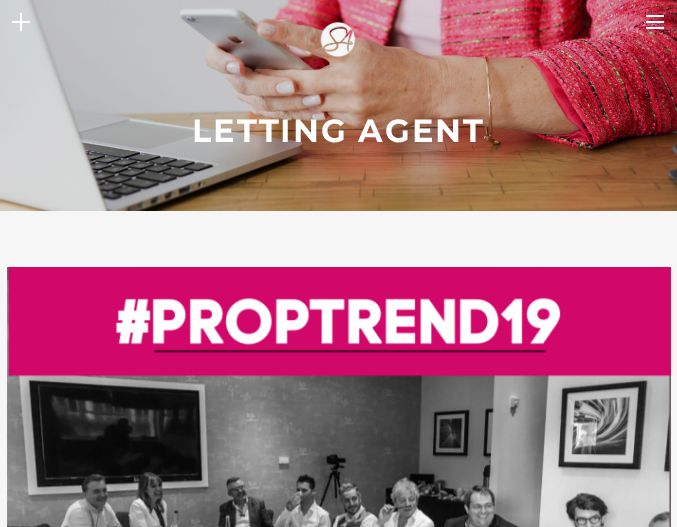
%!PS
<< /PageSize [677 527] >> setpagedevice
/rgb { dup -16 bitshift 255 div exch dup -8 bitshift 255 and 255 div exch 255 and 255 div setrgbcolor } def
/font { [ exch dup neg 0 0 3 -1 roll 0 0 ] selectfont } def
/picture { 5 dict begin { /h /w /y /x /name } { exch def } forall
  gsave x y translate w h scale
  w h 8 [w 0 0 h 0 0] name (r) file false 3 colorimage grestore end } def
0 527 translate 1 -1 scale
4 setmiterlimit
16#F6F6F6 rgb
0 0 677 527 rectfill
(pic2.raw) 0 0 1 211 picture
(pic3.raw) 0 0 677 211 picture
16#FFFFFF rgb
12 21 18 2 rectfill
20 13 2 18 rectfill
(pic1.raw) 320 21 36 37 picture
646 15 18 2 rectfill
646 21 18 2 rectfill
646 27 18 2 rectfill
/Montserrat-Bold 32 font
192 142 moveto 2 0 (LETTING AGENT) ashow
16#F2F2F2 rgb
7.5 267.5 663 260 rectstroke
(pic4.raw) 7 267 664 260 picture
showpage
